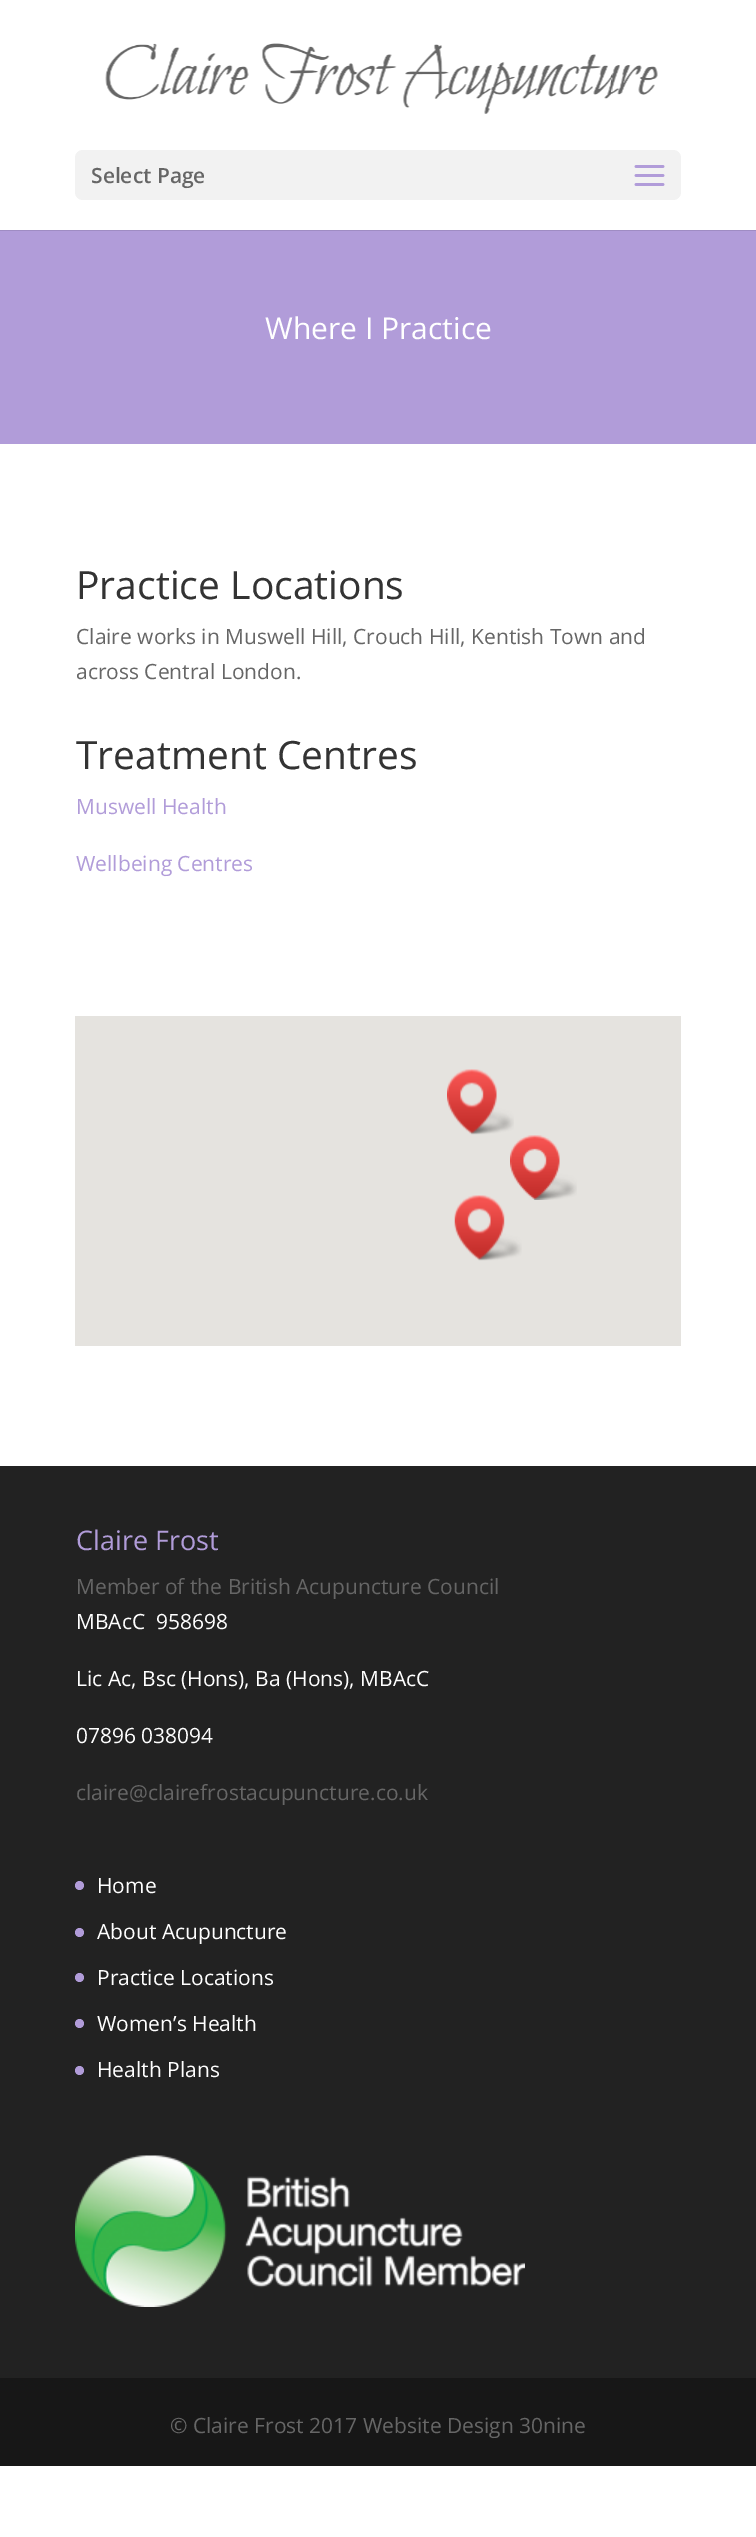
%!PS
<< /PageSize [756 2537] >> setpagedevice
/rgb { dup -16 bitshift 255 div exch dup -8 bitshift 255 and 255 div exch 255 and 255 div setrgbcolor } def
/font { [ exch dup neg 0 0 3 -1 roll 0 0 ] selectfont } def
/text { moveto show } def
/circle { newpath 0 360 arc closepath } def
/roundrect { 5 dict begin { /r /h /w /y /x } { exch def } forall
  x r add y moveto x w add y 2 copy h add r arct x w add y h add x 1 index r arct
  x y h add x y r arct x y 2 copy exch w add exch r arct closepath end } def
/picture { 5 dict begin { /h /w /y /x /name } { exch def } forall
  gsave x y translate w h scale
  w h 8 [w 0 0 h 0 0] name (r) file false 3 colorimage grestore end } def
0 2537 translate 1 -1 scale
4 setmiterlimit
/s1 { /OpenSans-SemiBold 21 font 16#666666 rgb } def
/s2 { /OpenSans-Regular 30 font 16#FFFFFF rgb } def
/s3 { /OpenSans-Regular 39 font 16#333333 rgb } def
/s4 { /OpenSans-Regular 21 font 16#666666 rgb } def
/s5 { /OpenSans-Regular 21 font 16#B19CD9 rgb } def
/s6 { /OpenSans-Regular 27 font 16#B19CD9 rgb } def
/s7 { /OpenSans-Regular 21 font 16#FFFFFF rgb } def
16#FFFFFF rgb
0 0 756 2537 rectfill
16#9F8CC3 rgb
0 230 756 1 rectfill
(pic1.raw) 105 43 553 71 picture
16#F2F2F2 rgb
75 150 606 50 8 roundrect fill
s1
(Select Page) 91 183 text
(pic2.raw) 634 165 31 21 picture
16#B19CD9 rgb
0 231 756 213 rectfill
s2
(Where I Practice) 265 339 text
s3
(Practice Locations) 76 599 text
s4
(Claire works in Muswell Hill, Crouch Hill, Kentish Town and) 76 644 text
(across Central London.) 76 679 text
s3
(Treatment Centres) 76 769 text
s5
(Muswell Health) 76 814 text
(Wellbeing Centres) 76 871 text
16#E5E3DF rgb
75 1016 606 330 rectfill
(pic3.raw) 447 1069 67 66 picture
(pic4.raw) 510 1135 67 65 picture
(pic5.raw) 454 1195 68 66 picture
16#222222 rgb
0 1466 756 912 rectfill
s6
(Claire Frost) 76 1550 text
s4
(Member of the British Acupuncture Council) 76 1594 text
s7
(MBAcC  958698) 76 1629 text
(Lic Ac, Bsc \(Hons\), Ba \(Hons\), MBAcC) 76 1686 text
(07896 038094) 76 1743 text
s4
(claire@clairefrostacupuncture.co.uk) 76 1800 text
16#B19CD9 rgb
79.5 1885.5 4.5 circle fill
s7
(Home) 97 1893 text
16#B19CD9 rgb
79.5 1932.5 4.5 circle fill
s7
(About Acupuncture) 97 1939 text
16#B19CD9 rgb
79.5 1977.5 4.5 circle fill
s7
(Practice Locations) 97 1985 text
16#B19CD9 rgb
79.5 2023.5 4.5 circle fill
s7
(Women’s Health) 97 2031 text
16#B19CD9 rgb
79.5 2070.5 4.5 circle fill
s7
(Health Plans) 97 2077 text
(pic6.raw) 75 2155 450 152 picture
16#171717 rgb
0 2378 756 88 rectfill
s4
(© Claire Frost 2017 Website Design 30nine) 170 2433 text
showpage
